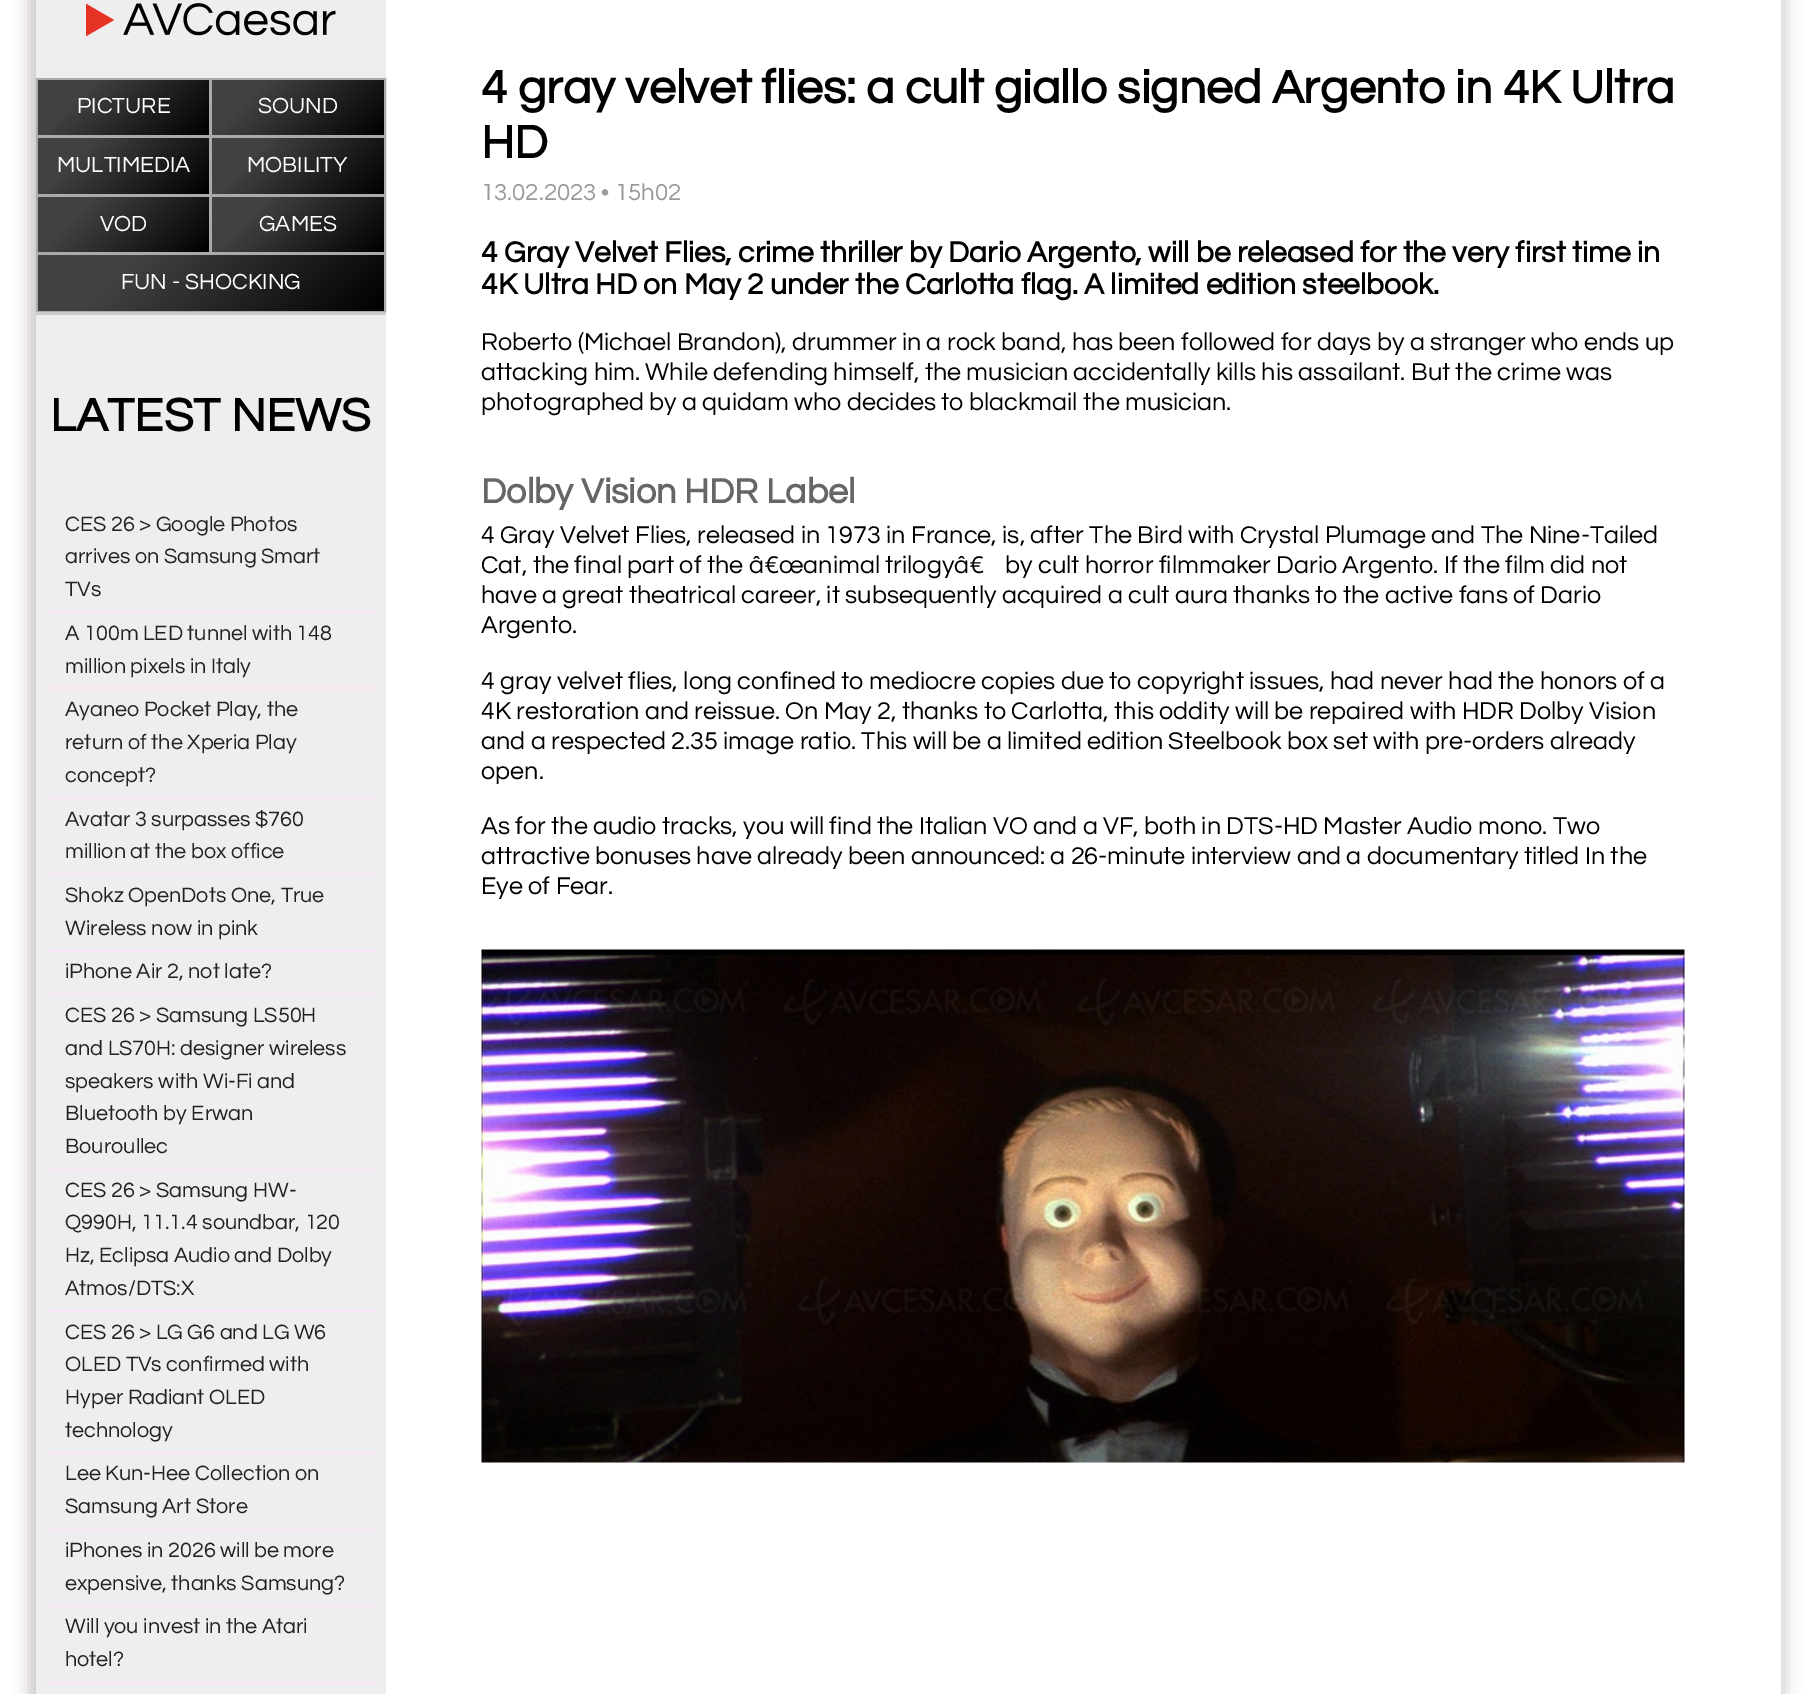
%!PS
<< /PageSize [1816 1694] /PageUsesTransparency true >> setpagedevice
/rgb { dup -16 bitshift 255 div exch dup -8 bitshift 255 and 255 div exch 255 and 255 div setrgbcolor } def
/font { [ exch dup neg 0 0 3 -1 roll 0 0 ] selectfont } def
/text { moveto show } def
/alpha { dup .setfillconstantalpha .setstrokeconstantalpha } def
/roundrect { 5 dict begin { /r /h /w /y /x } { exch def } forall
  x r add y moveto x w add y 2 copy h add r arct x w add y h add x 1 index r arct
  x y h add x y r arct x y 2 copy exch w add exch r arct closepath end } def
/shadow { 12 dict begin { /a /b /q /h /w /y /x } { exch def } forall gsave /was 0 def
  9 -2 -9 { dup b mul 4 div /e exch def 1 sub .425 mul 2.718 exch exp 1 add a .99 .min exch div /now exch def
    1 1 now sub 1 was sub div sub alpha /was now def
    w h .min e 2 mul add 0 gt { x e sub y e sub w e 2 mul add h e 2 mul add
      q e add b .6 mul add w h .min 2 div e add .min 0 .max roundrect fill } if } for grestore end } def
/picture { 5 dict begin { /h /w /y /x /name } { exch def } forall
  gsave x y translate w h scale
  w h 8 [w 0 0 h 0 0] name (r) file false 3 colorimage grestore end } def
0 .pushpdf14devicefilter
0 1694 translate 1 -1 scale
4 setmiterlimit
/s1 { /Questrial-Regular 22.75 font 16#FFFFFF rgb } def
/s2 { /Questrial-Bold 48 font 16#000000 rgb } def
/s3 { /Questrial-Regular 21.6 font 16#222222 rgb } def
/s4 { /Questrial-Regular 24 font 16#999999 rgb } def
/s5 { /Questrial-Bold 30 font 16#000000 rgb } def
/s6 { /Questrial-Regular 25.2 font 16#000000 rgb } def
/s7 { /Questrial-Bold 36 font 16#666666 rgb } def
16#FFFFFF rgb
0 0 1816 1694 rectfill
16#D0CAC9 rgb
29 -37 1744 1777 23 7.5 1 shadow
16#CDCDCD rgb
39 -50 1745 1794 23 9 1 shadow
16#FFFFFF rgb
386 0 1395 1694 rectfill
16#EEEEEE rgb
36 0 350 1694 rectfill
(pic1.raw) 86 3 250 34 picture
16#AAAAAA rgb
2 setlinewidth
37 79 172 57 rectstroke
gsave 38 80 moveto 209 80 lineto 209 135 lineto 38 135 lineto closepath clip newpath
<< /ShadingType 2 /ColorSpace /DeviceRGB /Coords [180 164 66 51] /Extend [true true] /Function << /FunctionType 3 /Domain [0 1] /Functions [<< /FunctionType 2 /Domain [0 1] /C0 [0 0 0] /C1 [0.255 0.255 0.255] /N 1 >> << /FunctionType 2 /Domain [0 1] /C0 [0.255 0.255 0.255] /C1 [0.255 0.255 0.255] /N 1 >>] /Bounds [0.74] /Encode [0 1 0 1] >> >> shfill grestore
s1
(PICTURE) 77 113 text
16#AAAAAA rgb
211 79 174 57 rectstroke
gsave 212 80 moveto 384 80 lineto 384 135 lineto 212 135 lineto closepath clip newpath
<< /ShadingType 2 /ColorSpace /DeviceRGB /Coords [355 164 241 50] /Extend [true true] /Function << /FunctionType 3 /Domain [0 1] /Functions [<< /FunctionType 2 /Domain [0 1] /C0 [0 0 0] /C1 [0.255 0.255 0.255] /N 1 >> << /FunctionType 2 /Domain [0 1] /C0 [0.255 0.255 0.255] /C1 [0.255 0.255 0.255] /N 1 >>] /Bounds [0.74] /Encode [0 1 0 1] >> >> shfill grestore
s1
(SOUND) 258 113 text
16#AAAAAA rgb
37 138 172 56 rectstroke
gsave 38 138 moveto 209 138 lineto 209 194 lineto 38 194 lineto closepath clip newpath
<< /ShadingType 2 /ColorSpace /DeviceRGB /Coords [180 222 66 109] /Extend [true true] /Function << /FunctionType 3 /Domain [0 1] /Functions [<< /FunctionType 2 /Domain [0 1] /C0 [0 0 0] /C1 [0.255 0.255 0.255] /N 1 >> << /FunctionType 2 /Domain [0 1] /C0 [0.255 0.255 0.255] /C1 [0.255 0.255 0.255] /N 1 >>] /Bounds [0.74] /Encode [0 1 0 1] >> >> shfill grestore
s1
(MULTIMEDIA) 57 172 text
16#AAAAAA rgb
211 138 174 56 rectstroke
gsave 212 138 moveto 384 138 lineto 384 194 lineto 212 194 lineto closepath clip newpath
<< /ShadingType 2 /ColorSpace /DeviceRGB /Coords [355 223 241 109] /Extend [true true] /Function << /FunctionType 3 /Domain [0 1] /Functions [<< /FunctionType 2 /Domain [0 1] /C0 [0 0 0] /C1 [0.255 0.255 0.255] /N 1 >> << /FunctionType 2 /Domain [0 1] /C0 [0.255 0.255 0.255] /C1 [0.255 0.255 0.255] /N 1 >>] /Bounds [0.74] /Encode [0 1 0 1] >> >> shfill grestore
s1
(MOBILITY) 247 172 text
16#AAAAAA rgb
37 196 172 57 rectstroke
gsave 38 197 moveto 209 197 lineto 209 252 lineto 38 252 lineto closepath clip newpath
<< /ShadingType 2 /ColorSpace /DeviceRGB /Coords [180 281 66 168] /Extend [true true] /Function << /FunctionType 3 /Domain [0 1] /Functions [<< /FunctionType 2 /Domain [0 1] /C0 [0 0 0] /C1 [0.255 0.255 0.255] /N 1 >> << /FunctionType 2 /Domain [0 1] /C0 [0.255 0.255 0.255] /C1 [0.255 0.255 0.255] /N 1 >>] /Bounds [0.74] /Encode [0 1 0 1] >> >> shfill grestore
s1
(VOD) 100 231 text
16#AAAAAA rgb
211 196 174 57 rectstroke
gsave 212 197 moveto 384 197 lineto 384 252 lineto 212 252 lineto closepath clip newpath
<< /ShadingType 2 /ColorSpace /DeviceRGB /Coords [355 281 241 167] /Extend [true true] /Function << /FunctionType 3 /Domain [0 1] /Functions [<< /FunctionType 2 /Domain [0 1] /C0 [0 0 0] /C1 [0.255 0.255 0.255] /N 1 >> << /FunctionType 2 /Domain [0 1] /C0 [0.255 0.255 0.255] /C1 [0.255 0.255 0.255] /N 1 >>] /Bounds [0.74] /Encode [0 1 0 1] >> >> shfill grestore
s1
(GAMES) 259 231 text
16#AAAAAA rgb
37 255 348 56 rectstroke
gsave 38 255 moveto 384 255 lineto 384 311 lineto 38 311 lineto closepath clip newpath
<< /ShadingType 2 /ColorSpace /DeviceRGB /Coords [311 383 110 182] /Extend [true true] /Function << /FunctionType 3 /Domain [0 1] /Functions [<< /FunctionType 2 /Domain [0 1] /C0 [0 0 0] /C1 [0.255 0.255 0.255] /N 1 >> << /FunctionType 2 /Domain [0 1] /C0 [0.255 0.255 0.255] /C1 [0.255 0.255 0.255] /N 1 >>] /Bounds [0.74] /Encode [0 1 0 1] >> >> shfill grestore
s1
(FUN - SHOCKING) 121 289 text
16#CCCCCC rgb
36 312 350 3 rectfill
s2
(LATEST NEWS) 50 431 text
s3
(CES 26 > Google Photos) 65 531 text
(arrives on Samsung Smart) 65 563 text
(TVs) 65 596 text
16#FDE7F9 rgb
45 611 332 2 rectfill
s3
(A 100m LED tunnel with 148) 65 640 text
(million pixels in Italy) 65 673 text
16#FDE7F9 rgb
45 687 332 2 rectfill
s3
(Ayaneo Pocket Play, the) 65 716 text
(return of the Xperia Play) 65 749 text
(concept?) 65 782 text
16#FDE7F9 rgb
45 797 332 2 rectfill
s3
(Avatar 3 surpasses $760) 65 826 text
(million at the box office) 65 858 text
16#FDE7F9 rgb
45 873 332 2 rectfill
s3
(Shokz OpenDots One, True) 65 902 text
(Wireless now in pink) 65 935 text
16#FDE7F9 rgb
45 950 332 2 rectfill
s3
(iPhone Air 2, not late?) 65 978 text
16#FDE7F9 rgb
45 993 332 2 rectfill
s3
(CES 26 > Samsung LS50H) 65 1022 text
(and LS70H: designer wireless) 65 1055 text
(speakers with Wi-Fi and) 65 1088 text
(Bluetooth by Erwan) 65 1120 text
(Bouroullec) 65 1153 text
16#FDE7F9 rgb
45 1169 332 2 rectfill
s3
(CES 26 > Samsung HW-) 65 1197 text
(Q990H, 11.1.4 soundbar, 120) 65 1229 text
(Hz, Eclipsa Audio and Dolby) 65 1262 text
(Atmos/DTS:X) 65 1295 text
16#FDE7F9 rgb
45 1310 332 2 rectfill
s3
(CES 26 > LG G6 and LG W6) 65 1339 text
(OLED TVs confirmed with) 65 1371 text
(Hyper Radiant OLED) 65 1404 text
(technology) 65 1437 text
16#FDE7F9 rgb
45 1452 332 2 rectfill
s3
(Lee Kun-Hee Collection on) 65 1480 text
(Samsung Art Store) 65 1513 text
16#FDE7F9 rgb
45 1529 332 2 rectfill
s3
(iPhones in 2026 will be more) 65 1557 text
(expensive, thanks Samsung?) 65 1590 text
16#FDE7F9 rgb
45 1605 332 2 rectfill
s3
(Will you invest in the Atari) 65 1633 text
(hotel?) 65 1666 text
16#FDE7F9 rgb
45 1682 332 2 rectfill
s2
(4 gray velvet flies: a cult giallo signed Argento in 4K Ultra) 481 103 text
(HD) 481 158 text
s4
(13.02.2023 • 15h02) 481 200 text
s5
(4 Gray Velvet Flies, crime thriller by Dario Argento, will be released for the very first time in) 481 262 text
(4K Ultra HD on May 2 under the Carlotta flag. A limited edition steelbook.) 481 294 text
s6
(Roberto \(Michael Brandon\), drummer in a rock band, has been followed for days by a stranger who ends up) 481 350 text
(attacking him. While defending himself, the musician accidentally kills his assailant. But the crime was) 481 380 text
(photographed by a quidam who decides to blackmail the musician.) 481 410 text
s7
(Dolby Vision HDR Label) 481 503 text
s6
(4 Gray Velvet Flies, released in 1973 in France, is, after The Bird with Crystal Plumage and The Nine-Tailed) 481 543 text
(Cat, the final part of the â€œanimal trilogyâ€) 481 573 text
(by cult horror filmmaker Dario Argento. If the film did not) 1005 573 text
(have a great theatrical career, it subsequently acquired a cult aura thanks to the active fans of Dario) 481 603 text
(Argento.) 481 633 text
(4 gray velvet flies, long confined to mediocre copies due to copyright issues, had never had the honors of a) 481 689 text
(4K restoration and reissue. On May 2, thanks to Carlotta, this oddity will be repaired with HDR Dolby Vision) 481 719 text
(and a respected 2.35 image ratio. This will be a limited edition Steelbook box set with pre-orders already) 481 749 text
(open.) 481 779 text
(As for the audio tracks, you will find the Italian VO and a VF, both in DTS-HD Master Audio mono. Two) 481 834 text
(attractive bonuses have already been announced: a 26-minute interview and a documentary titled In the) 481 864 text
(Eye of Fear.) 481 894 text
(pic2.raw) 481 949 1204 514 picture
.poppdf14devicefilter showpage
